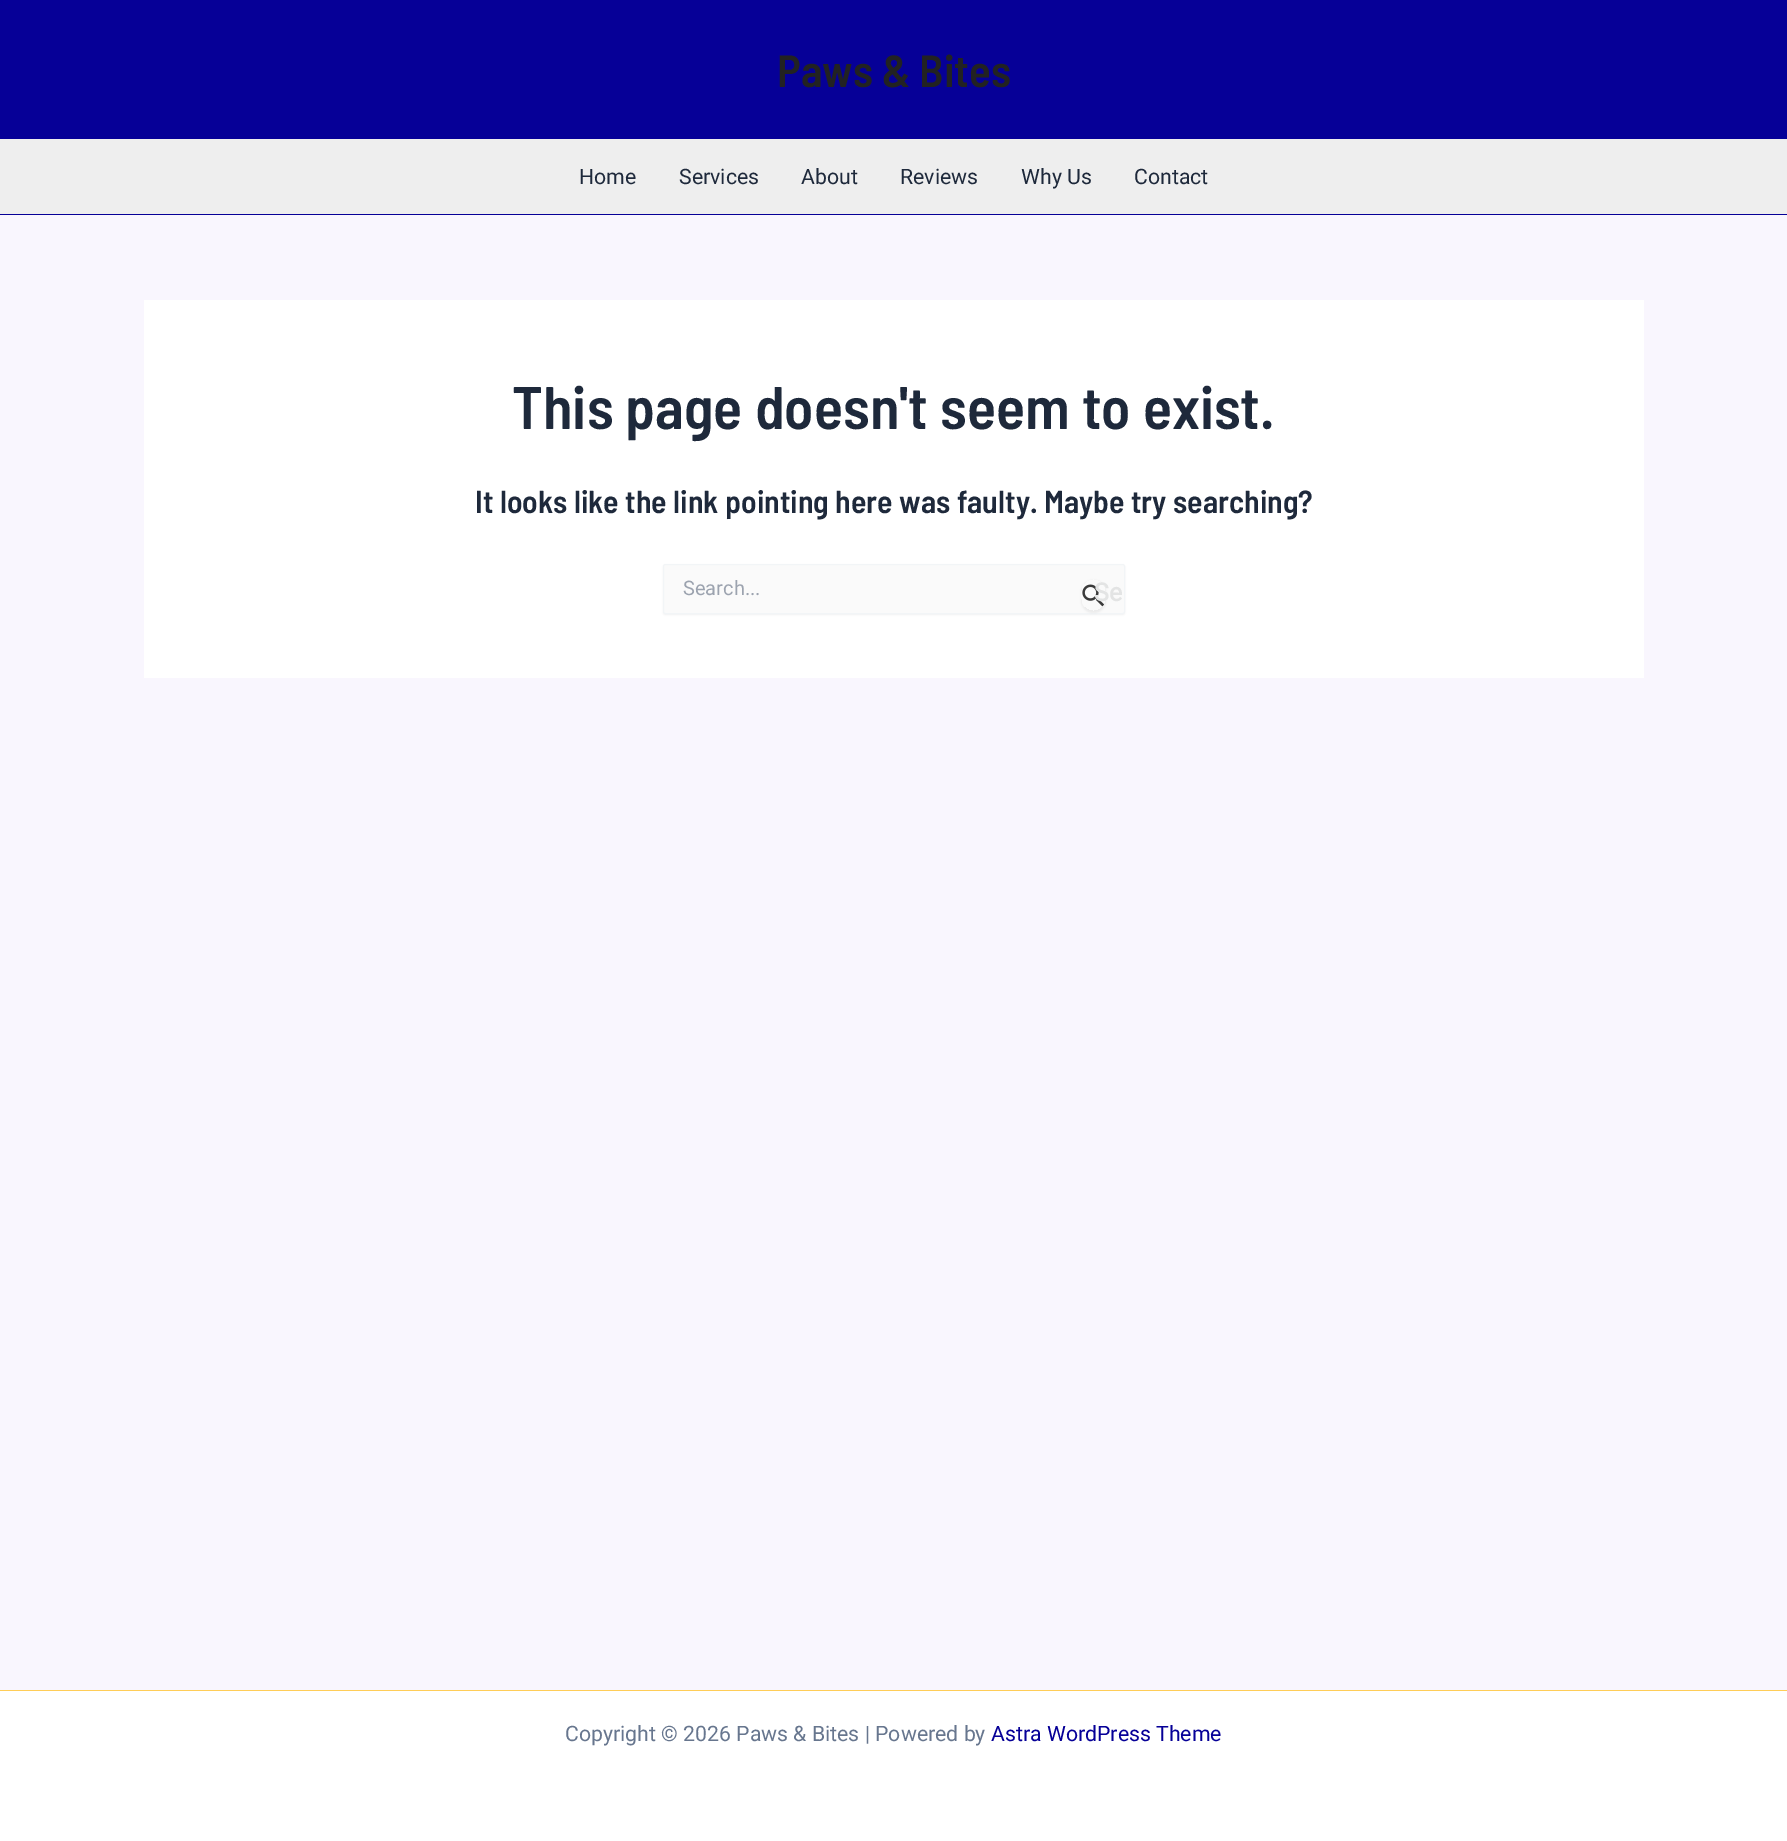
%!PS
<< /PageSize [1787 1841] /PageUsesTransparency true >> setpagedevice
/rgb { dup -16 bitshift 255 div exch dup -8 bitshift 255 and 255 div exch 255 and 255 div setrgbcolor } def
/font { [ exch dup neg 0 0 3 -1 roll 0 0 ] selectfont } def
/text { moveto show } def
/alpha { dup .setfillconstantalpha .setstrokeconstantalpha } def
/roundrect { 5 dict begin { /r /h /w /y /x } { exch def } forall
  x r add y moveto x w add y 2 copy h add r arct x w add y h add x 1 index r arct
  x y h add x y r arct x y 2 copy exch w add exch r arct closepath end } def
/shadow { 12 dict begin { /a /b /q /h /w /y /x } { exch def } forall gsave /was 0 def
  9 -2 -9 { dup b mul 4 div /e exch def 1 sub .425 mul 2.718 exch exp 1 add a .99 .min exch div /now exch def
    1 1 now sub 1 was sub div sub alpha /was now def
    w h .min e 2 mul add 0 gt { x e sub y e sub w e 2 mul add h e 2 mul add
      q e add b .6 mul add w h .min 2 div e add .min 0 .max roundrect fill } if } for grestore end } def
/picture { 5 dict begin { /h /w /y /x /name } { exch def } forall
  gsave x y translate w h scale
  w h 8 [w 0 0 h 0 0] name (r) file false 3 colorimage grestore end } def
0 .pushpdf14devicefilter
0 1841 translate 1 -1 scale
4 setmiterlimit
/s1 { /BarlowSemiCondensed-SemiBold 45 font 16#222222 rgb } def
/s2 { /Roboto-Regular 21.25 font 16#1E293B rgb } def
/s3 { /BarlowSemiCondensed-SemiBold 60 font 16#1E293B rgb } def
/s4 { /BarlowSemiCondensed-SemiBold 31.9 font 16#1E293B rgb } def
/s5 { /Roboto-Regular 20 font 16#9CA3AF rgb } def
/s6 { /Roboto-Bold 25 font 16#E3E4E4 rgb } def
/s7 { /Roboto-Regular 21.25 font 16#67768E rgb } def
/s8 { /Roboto-Regular 21.25 font 16#060097 rgb } def
16#F9F6FE rgb
0 0 1787 1841 rectfill
16#060097 rgb
0 0 1787 139 rectfill
s1
(Paws & Bites) 777 87 text
16#EEEEEE rgb
0 139 1787 75 rectfill
16#060097 rgb
0 214 1787 1 rectfill
s2
(Home) 579 184 text
(Services) 679 184 text
(About) 801 184 text
(Reviews) 900 184 text
(Why Us) 1021 184 text
(Contact) 1134 184 text
16#FFFFFF rgb
144 300 1500 378 rectfill
s3
(This page doesn't seem to exist.) 512 429 text
s4
(It looks like the link pointing here was faulty. Maybe try searching?) 475 513 text
16#000000 rgb
663 565 462 50 2.5 1 0.05 shadow
16#FAFAFA rgb
663.5 564.5 461 49 2 roundrect gsave fill grestore
16#F2F5F7 rgb
stroke
s5
(Search...) 683 595 text
gsave
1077 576 moveto 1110 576 lineto 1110 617 lineto 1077 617 lineto closepath 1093.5 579 moveto 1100.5 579 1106 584.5 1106 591.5 curveto 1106 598.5 lineto 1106 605.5 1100.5 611 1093.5 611 curveto 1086.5 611 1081 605.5 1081 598.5 curveto 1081 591.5 lineto 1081 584.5 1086.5 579 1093.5 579 curveto closepath eoclip newpath
16#000000 rgb
1081 580 25 33 12.5 1 0.05 shadow
grestore
(pic1.raw) 1082 584 22 23 picture
s6
(Se) 1094 601 text
16#FFFFFF rgb
0 1691 1787 150 rectfill
16#FFCD57 rgb
0 1690 1787 1 rectfill
s7
(Copyright © 2026 Paws & Bites | Powered by) 565 1741 text
s8
(Astra WordPress Theme) 991 1741 text
.poppdf14devicefilter showpage
